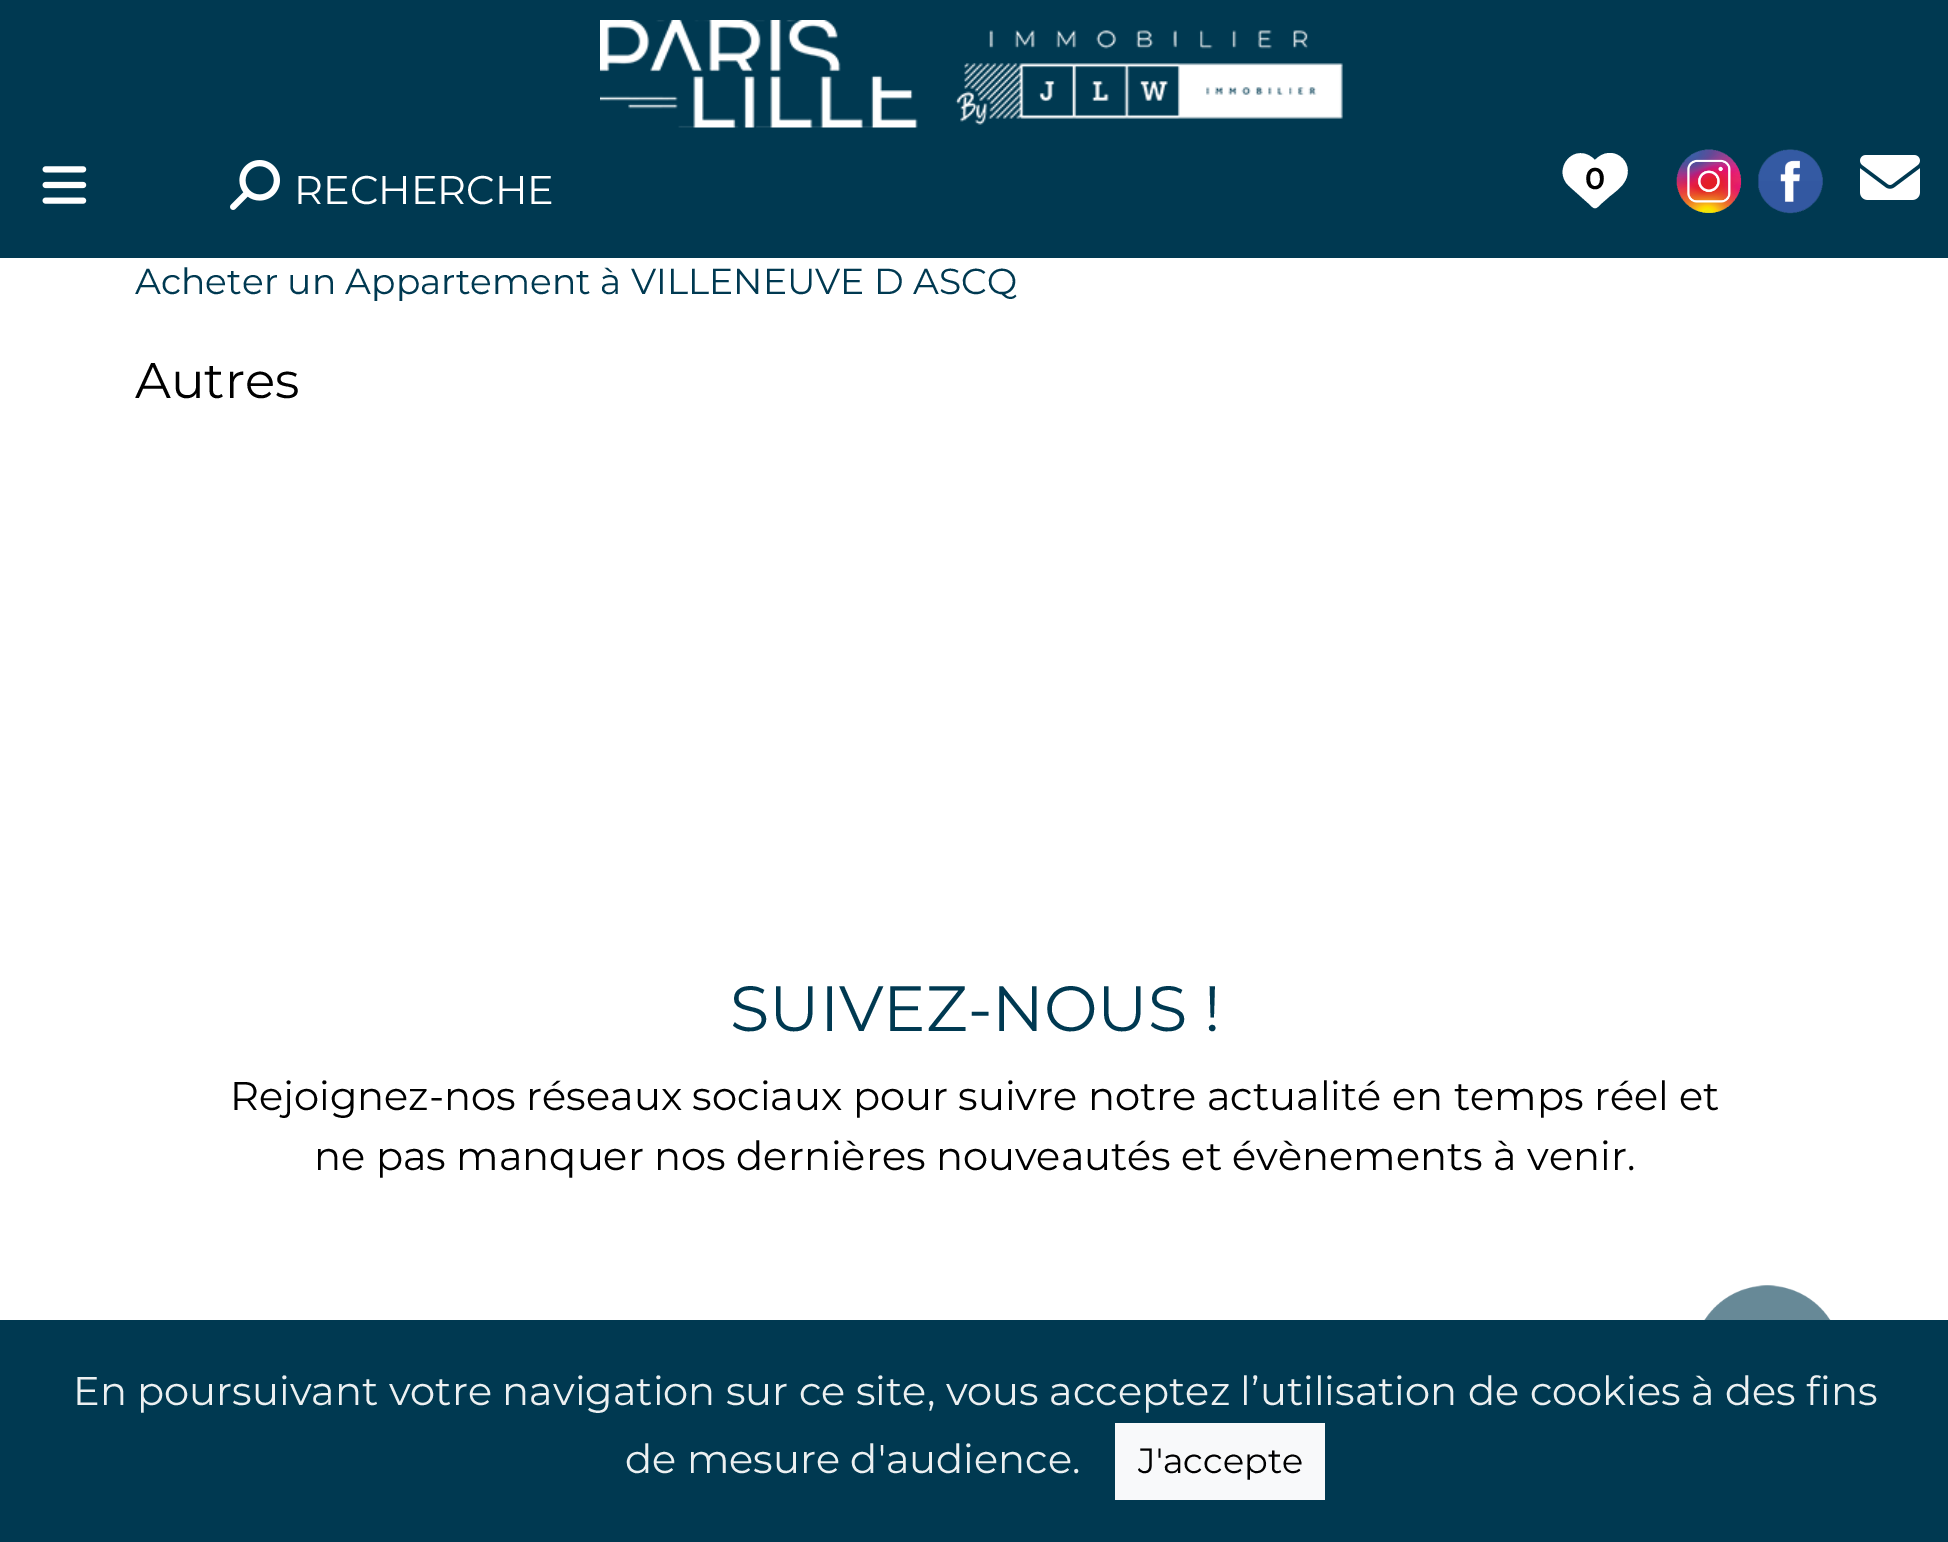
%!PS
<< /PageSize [1948 1542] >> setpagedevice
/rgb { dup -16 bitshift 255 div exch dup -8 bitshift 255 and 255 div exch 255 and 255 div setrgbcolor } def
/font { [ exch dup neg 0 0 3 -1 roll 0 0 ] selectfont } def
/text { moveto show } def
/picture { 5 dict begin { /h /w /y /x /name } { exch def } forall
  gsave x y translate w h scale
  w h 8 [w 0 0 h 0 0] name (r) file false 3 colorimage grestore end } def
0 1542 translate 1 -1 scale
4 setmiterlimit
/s1 { /Montserrat-Regular 40 font 16#FFFFFF rgb } def
/s2 { /Montserrat-SemiBold 30 font 16#000000 rgb } def
/s3 { /Montserrat-Regular 36 font 16#003951 rgb } def
/s4 { /Montserrat-Regular 50 font 16#000000 rgb } def
/s5 { /Montserrat-Regular 63.75 font 16#003951 rgb } def
/s6 { /Montserrat-Regular 40 font 16#000000 rgb } def
/s7 { /Montserrat-Regular 40 font 16#ECF0F1 rgb } def
/s8 { /Montserrat-Regular 35 font 16#000000 rgb } def
16#FFFFFF rgb
0 0 1948 1542 rectfill
16#003951 rgb
0 0 1948 258 rectfill
(pic1.raw) 600 20 743 108 picture
(pic2.raw) 42 166 45 38 picture
(pic3.raw) 230 160 50 50 picture
s1
(RECHERCHE) 294 204 text
1569 186 moveto 1588 203 lineto 1595 210 1595 210 1602 203 curveto 1610 196 lineto 1615 192 1622 187 1625 181 curveto 1636 162 1612 142 1595 160 curveto 1575 140 1551 169 1569 186 curveto closepath fill
s2
(0) 1585 189 text
(pic4.raw) 1676 149 66 64 picture
(pic5.raw) 1758 149 65 65 picture
(pic6.raw) 1860 155 60 45 picture
s3
(Acheter un Appartement à VILLENEUVE D ASCQ) 135 294 text
s4
(Autres) 135 398 text
s5
(SUIVEZ-NOUS !) 730 1031 text
s6
(Rejoignez-nos réseaux sociaux pour suivre notre actualité en temps réel et) 230 1110 text
(ne pas manquer nos dernières nouveautés et évènements à venir.) 314 1170 text
(pic7.raw) 1704 1285 127 35 picture
16#003951 rgb
0 1320 1948 222 rectfill
s7
(En poursuivant votre navigation sur ce site, vous acceptez l’utilisation de cookies à des fins) 73 1405 text
(de mesure d'audience.) 625 1473 text
16#F8F9FA rgb
1115 1423 210 77 rectfill
s8
(J'accepte) 1138 1473 text
showpage
